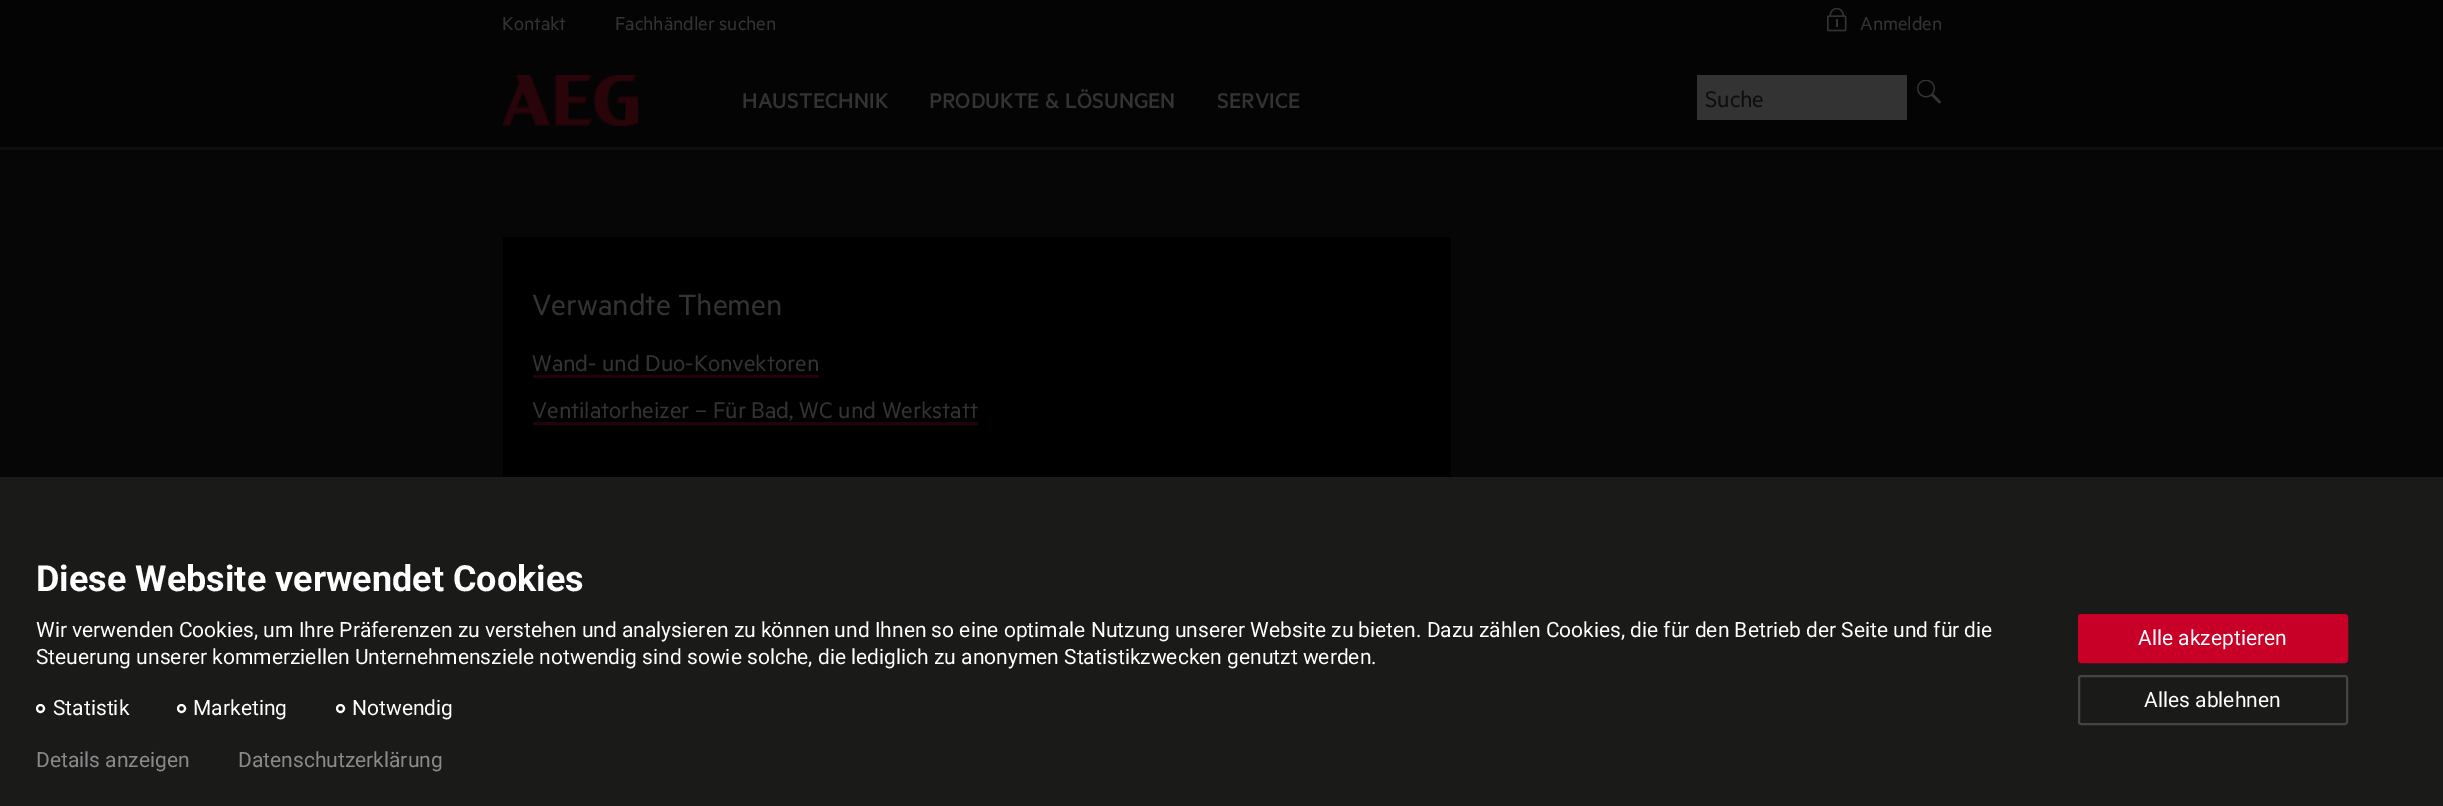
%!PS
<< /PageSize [2443 806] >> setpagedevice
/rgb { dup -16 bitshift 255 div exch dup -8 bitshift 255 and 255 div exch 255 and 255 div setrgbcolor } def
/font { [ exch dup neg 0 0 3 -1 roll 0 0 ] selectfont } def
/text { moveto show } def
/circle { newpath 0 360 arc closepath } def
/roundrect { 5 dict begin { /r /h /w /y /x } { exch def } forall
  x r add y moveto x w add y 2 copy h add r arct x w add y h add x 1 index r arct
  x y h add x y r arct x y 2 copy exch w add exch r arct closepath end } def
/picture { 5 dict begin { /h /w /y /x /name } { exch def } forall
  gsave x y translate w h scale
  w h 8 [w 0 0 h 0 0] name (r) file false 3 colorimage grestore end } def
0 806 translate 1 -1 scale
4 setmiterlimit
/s1 { /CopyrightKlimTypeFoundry-Regular 21 font 16#333333 rgb } def
/s2 { /CopyrightKlimTypeFoundry-Medium 24 font 16#333333 rgb } def
/s3 { /CopyrightKlimTypeFoundry-Regular 25.5 font 16#0E0E0E rgb } def
/s4 { /CopyrightKlimTypeFoundry-Regular 33 font 16#333333 rgb } def
/s5 { /CopyrightKlimTypeFoundry-Regular 25.5 font 16#333333 rgb } def
/s6 { /Roboto-Bold 36 font 16#FFFFFF rgb } def
/s7 { /Roboto-Regular 21 font 16#FFFFFF rgb } def
/s8 { /Roboto-Regular 21 font 16#898B8B rgb } def
16#070606 rgb
0 0 2443 806 rectfill
16#040404 rgb
0 0 2443 147 rectfill
16#0F0E0E rgb
0 147 2443 3 rectfill
s1
(Kontakt) 502 30 text
(Fachhändler suchen) 615 30 text
(pic1.raw) 1827 8 20 24 picture
(Anmelden) 1860 30 text
(pic2.raw) 502 75 136 51 picture
s2
(HAUSTECHNIK) 742 108 text
(PRODUKTE & LÖSUNGEN) 929 108 text
(SERVICE) 1217 108 text
1697 75 210 45 rectfill
gsave
1706 84 192 27 rectclip
s3
(Suche) 1705 107 text
grestore
(pic3.raw) 1917 80 24 24 picture
16#000000 rgb
503 237 948 240 rectfill
s4
(Verwandte Themen) 532 315 text
s5
(Wand- und Duo-Konvektoren) 532 371 text
16#250209 rgb
533 375 286 3 rectfill
s5
(Ventilatorheizer – Für Bad, WC und Werkstatt) 532 418 text
16#250209 rgb
533 422 445 3 rectfill
16#1A1A19 rgb
0 477 2443 329 rectfill
s6
(Diese Website verwendet Cookies) 36 591 text
s7
(Wir verwenden Cookies, um Ihre Präferenzen zu verstehen und analysieren zu können und Ihnen so eine optimale Nutzung unserer Website zu bieten. Dazu zählen Cookies, die für den Betrieb der Seite und für die) 36 637 text
(Steuerung unserer kommerziellen Unternehmensziele notwendig sind sowie solche, die lediglich zu anonymen Statistikzwecken genutzt werden.) 36 664 text
16#131313 rgb
40.5 708.5 3.5 circle gsave fill grestore
16#FFFFFF rgb
2 setlinewidth
stroke
(Statistik) 53 715 text
16#131313 rgb
181.5 708.5 3.5 circle gsave fill grestore
16#FFFFFF rgb
stroke
(Marketing) 193 715 text
16#131313 rgb
340.5 708.5 3.5 circle gsave fill grestore
16#FFFFFF rgb
stroke
(Notwendig) 352 715 text
16#C80028 rgb
2079 615 268 47 2 roundrect gsave fill grestore
stroke
s7
(Alle akzeptieren) 2138 645 text
16#454544 rgb
2079 676 268 48 2 roundrect stroke
s7
(Alles ablehnen) 2144 707 text
s8
(Details anzeigen) 36 767 text
(Datenschutzerklärung) 238 767 text
showpage
